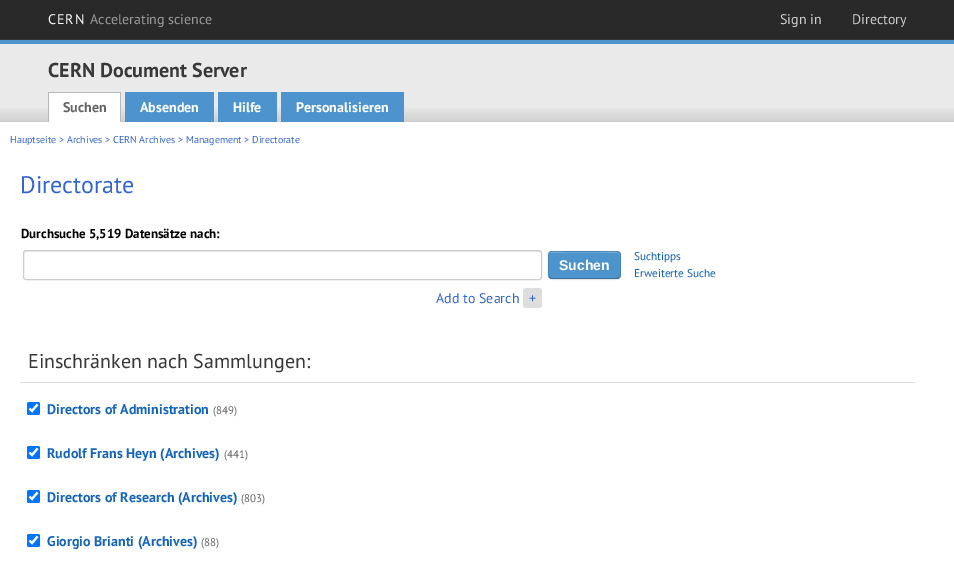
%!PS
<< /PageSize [954 571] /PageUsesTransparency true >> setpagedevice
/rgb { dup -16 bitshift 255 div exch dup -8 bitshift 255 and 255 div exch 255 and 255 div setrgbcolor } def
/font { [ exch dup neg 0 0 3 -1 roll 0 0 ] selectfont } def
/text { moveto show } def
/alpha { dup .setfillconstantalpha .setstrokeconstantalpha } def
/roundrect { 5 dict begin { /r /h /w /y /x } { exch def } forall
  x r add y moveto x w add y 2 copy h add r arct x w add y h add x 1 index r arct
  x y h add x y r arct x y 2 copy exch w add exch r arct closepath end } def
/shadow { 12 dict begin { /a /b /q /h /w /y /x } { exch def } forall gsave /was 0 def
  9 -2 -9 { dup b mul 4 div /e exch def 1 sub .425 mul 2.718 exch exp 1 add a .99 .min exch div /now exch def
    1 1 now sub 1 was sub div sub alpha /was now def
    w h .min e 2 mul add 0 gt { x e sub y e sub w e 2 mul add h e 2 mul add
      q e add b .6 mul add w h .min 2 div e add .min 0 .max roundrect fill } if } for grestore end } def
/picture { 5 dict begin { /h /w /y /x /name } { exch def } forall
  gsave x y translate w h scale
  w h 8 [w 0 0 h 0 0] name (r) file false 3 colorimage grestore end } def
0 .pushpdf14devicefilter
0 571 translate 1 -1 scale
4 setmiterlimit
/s1 { /PTSans-Regular 14 font 16#999999 rgb } def
/s2 { /PTSans-Regular 14 font 16#CCCCCC rgb } def
/s3 { /PTSans-Bold 20 font 16#383838 rgb } def
/s4 { /PTSans-Bold 14 font 16#666666 rgb } def
/s5 { /PTSans-Bold 14 font 16#FFFFFF rgb } def
/s6 { /PTSans-Regular 10 font 16#3366CC rgb } def
/s7 { /PTSans-Regular 24 font 16#3366CC rgb } def
/s8 { /PTSans-Bold 13 font 16#000000 rgb } def
/s9 { /LiberationSans-Bold 14 font 16#FFFFFF rgb } def
/s10 { /PTSans-Regular 11.25 font 16#1565BA rgb } def
/s11 { /PTSans-Regular 14 font 16#3366CC rgb } def
/s12 { /PTSans-Regular 20 font 16#383838 rgb } def
/s13 { /PTSans-Bold 14 font 16#1565BA rgb } def
/s14 { /PTSans-Regular 11 font 16#666666 rgb } def
16#FFFFFF rgb
0 0 954 571 rectfill
16#292929 rgb
0 0 954 39 rectfill
16#353535 rgb
0 39 954 1 rectfill
/PTSans-Regular 14 font
16#FFFFFF rgb
48 24 moveto 1 0 (CERN) ashow
s1
(Accelerating science) 90 24 text
s2
(Sign in) 780 24 text
(Directory) 852 24 text
16#EAEAEA rgb
0 44 954 78 rectfill
(pic1.raw) 0 108 954 14 picture
16#4D94CC rgb
0 40 954 4 rectfill
s3
(CERN Document Server) 48 77 text
16#FFFFFF rgb
49 93 71 29 rectfill
16#B8B8B8 rgb
48 92 73 1 rectfill
120 92 1 30 rectfill
48 92 1 30 rectfill
s4
(Suchen) 63 112 text
16#4D94CE rgb
125 92 89 30 rectfill
s5
(Absenden) 140 112 text
16#4D94CE rgb
218 92 59 30 rectfill
s5
(Hilfe) 233 112 text
16#4D94CE rgb
281 92 123 30 rectfill
s5
(Personalisieren) 296 112 text
s6
(Hauptseite > Archives > CERN Archives > Management > Directorate) 10 143 text
s7
(Directorate) 20 193 text
s8
(Durchsuche 5,519 Datensätze nach:) 21 238 text
16#ECECEC rgb
26 252 moveto 539 252 lineto 540 252 541 253 541 254 curveto 541 253 541 251 539 251 curveto 26 251 lineto 24 252 lineto 24 254 lineto 24 253 25 252 26 252 curveto closepath fill
16#CCCCCC rgb
23.5 250.5 518 29 2.5 roundrect stroke
16#000000 rgb
548 252 73 28 4 1 0.05 shadow
16#4D94CC rgb
548 251 73 28 4 roundrect fill
16#71A9D6 rgb
552 253 moveto 617 253 lineto 619 253 620 254 620 256 curveto 620 249 610 252 606 252 curveto 563 252 lineto 559 252 549 249 549 256 curveto 549 254 550 253 552 253 curveto closepath fill
0.25 alpha
16#000000 rgb
619.5 277.5 moveto 617.5 278.5 lineto 551.5 278.5 lineto 549.5 277.5 lineto stroke
0.1 alpha
549.5 277.5 moveto 547.5 275 548.5 267.5 548.5 265 curveto 548.5 249.5 546.5 251.5 563 251.5 curveto 606 251.5 lineto 622.5 251.5 620.5 249.5 620.5 265 curveto 620.5 267.5 621.5 275 619.5 277.5 curveto stroke
1 alpha
s9
(Suchen) 559 270 text
s10
(Suchtipps) 634 260 text
(Erweiterte Suche) 634 277 text
s11
(Add to Search) 436 303 text
16#DDDDDD rgb
523 288 19 20 3 roundrect fill
s11
(+) 529 303 text
16#DDDDDD rgb
20 382 895 1 rectfill
s12
(Einschränken nach Sammlungen:) 28 368 text
16#0075FF rgb
27 402 13 13 2 roundrect fill
16#FFFFFF rgb
2.1 setlinewidth
29.5 408.5 moveto 32 411 lineto 37.5 404.5 lineto stroke
s13
(Directors of Administration) 47 414 text
s14
(\(849\)) 213 414 text
16#0075FF rgb
27 446 13 13 2 roundrect fill
16#FFFFFF rgb
29.5 452.5 moveto 32 455 lineto 37.5 448.5 lineto stroke
s13
(Rudolf Frans Heyn \(Archives\)) 47 458 text
s14
(\(441\)) 224 458 text
16#0075FF rgb
27 490 13 13 2 roundrect fill
16#FFFFFF rgb
29.5 496.5 moveto 32 499 lineto 37.5 492.5 lineto stroke
s13
(Directors of Research \(Archives\)) 47 502 text
s14
(\(803\)) 241 502 text
16#0075FF rgb
27 534 13 13 2 roundrect fill
16#FFFFFF rgb
29.5 540.5 moveto 32 543 lineto 37.5 536.5 lineto stroke
s13
(Giorgio Brianti \(Archives\)) 47 546 text
s14
(\(88\)) 201 546 text
.poppdf14devicefilter showpage
